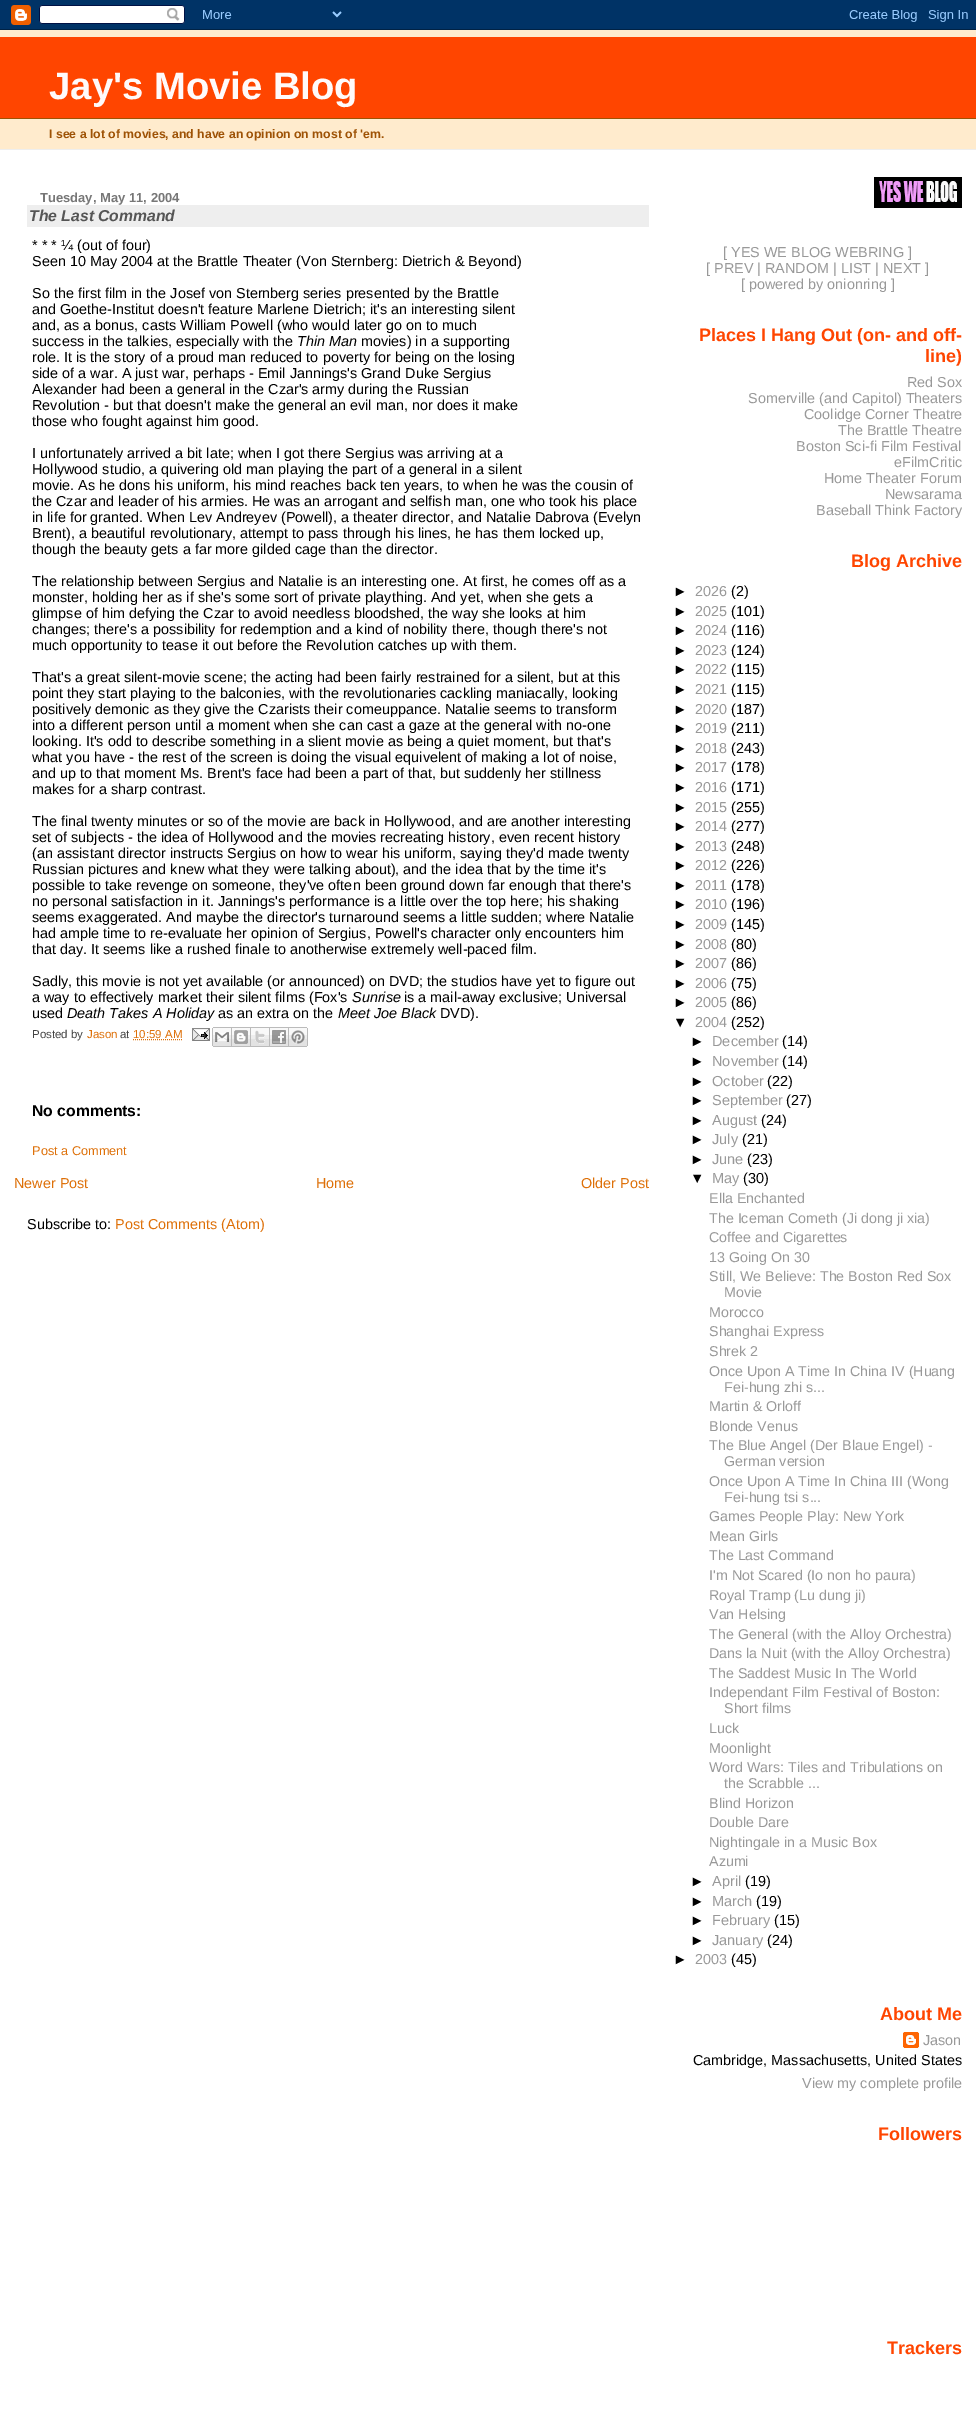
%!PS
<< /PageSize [976 2411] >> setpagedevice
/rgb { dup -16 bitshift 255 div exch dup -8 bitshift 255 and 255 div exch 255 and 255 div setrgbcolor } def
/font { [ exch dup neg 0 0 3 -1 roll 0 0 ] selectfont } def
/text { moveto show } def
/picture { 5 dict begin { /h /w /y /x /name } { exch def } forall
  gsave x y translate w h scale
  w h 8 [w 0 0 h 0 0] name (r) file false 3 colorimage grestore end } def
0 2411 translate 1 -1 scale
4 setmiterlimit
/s1 { /LiberationSans-Bold 38.25 font 16#FFFAFA rgb } def
/s2 { /LiberationSans-Bold 12.25 font 16#9E5205 rgb } def
/s3 { /LiberationSans-Bold 13 font 16#777777 rgb } def
/s4 { /LiberationSans-BoldItalic 15.75 font 16#555555 rgb } def
/s5 { /LiberationSans-Regular 14.4 font 16#000000 rgb } def
/s6 { /LiberationSans-Italic 14.4 font 16#000000 rgb } def
/s7 { /LiberationSans-Regular 11.5 font 16#444444 rgb } def
/s8 { /LiberationSans-Regular 11.5 font 16#DE7008 rgb } def
/s9 { /LiberationSans-Bold 15.75 font 16#000000 rgb } def
/s10 { /LiberationSans-Regular 12.75 font 16#DE7008 rgb } def
/s11 { /LiberationSans-Regular 14.4 font 16#DE7008 rgb } def
/s12 { /LiberationSans-Regular 14.4 font 16#999999 rgb } def
/s13 { /LiberationSans-Bold 18 font 16#FF4500 rgb } def
/s14 { /LiberationSans-Regular 14.5 font 16#000000 rgb } def
/s15 { /LiberationSans-Regular 14.5 font 16#999999 rgb } def
/s16 { /LiberationSans-Regular 14.25 font 16#999999 rgb } def
16#FFFFFF rgb
0 0 976 2411 rectfill
(pic1.raw) 0 0 976 30 picture
16#FFEBCD rgb
0 30 976 119 rectfill
16#EEEEEE rgb
0 149 976 1 rectfill
16#FF4500 rgb
0 37 976 81 rectfill
16#9E5205 rgb
0 118 976 1 rectfill
s1
(Jay's Movie Blog) 49 99 text
s2
(I see a lot of movies, and have an opinion on most of 'em.) 49 138 text
s3
(Tuesday, May 11, 2004) 40 202 text
16#EEEEEE rgb
27 205 622 22 rectfill
s4
(The Last Command) 29 221 text
s5
(* * * ¼ \(out of four\)) 32 250 text
(Seen 10 May 2004 at the Brattle Theater \(Von Sternberg: Dietrich & Beyond\)) 32 266 text
(So the first film in the Josef von Sternberg series presented by the Brattle) 32 298 text
(and Goethe-Institut doesn't feature Marlene Dietrich; it's an interesting silent) 32 314 text
(and, as a bonus, casts William Powell \(who would later go on to much) 32 330 text
(success in the talkies, especially with the) 32 346 text
s6
(Thin Man) 297 346 text
s5
(movies\) in a supporting) 361 346 text
(role. It is the story of a proud man reduced to poverty for being on the losing) 32 362 text
(side of a war. A just war, perhaps - Emil Jannings's Grand Duke Sergius) 32 378 text
(Alexander had been a general in the Czar's army during the Russian) 32 394 text
(Revolution - but that doesn't make the general an evil man, nor does it make) 32 410 text
(those who fought against him good.) 32 426 text
(I unfortunately arrived a bit late; when I got there Sergius was arriving at a) 32 458 text
(Hollywood studio, a quivering old man playing the part of a general in a silent) 32 474 text
(movie. As he dons his uniform, his mind reaches back ten years, to when he was the cousin of) 32 490 text
(the Czar and leader of his armies. He was an arrogant and selfish man, one who took his place) 32 506 text
(in life for granted. When Lev Andreyev \(Powell\), a theater director, and Natalie Dabrova \(Evelyn) 32 522 text
(Brent\), a beautiful revolutionary, attempt to pass through his lines, he has them locked up,) 32 538 text
(though the beauty gets a far more gilded cage than the director.) 32 554 text
(The relationship between Sergius and Natalie is an interesting one. At first, he comes off as a) 32 586 text
(monster, holding her as if she's some sort of private plaything. And yet, when she gets a) 32 602 text
(glimpse of him defying the Czar to avoid needless bloodshed, the way she looks at him) 32 618 text
(changes; there's a possibility for redemption and a kind of nobility there, though there's not) 32 634 text
(much opportunity to tease it out before the Revolution catches up with them.) 32 650 text
(That's a great silent-movie scene; the acting had been fairly restrained for a silent, but at this) 32 682 text
(point they start playing to the balconies, with the revolutionaries cackling maniacally, looking) 32 698 text
(positively demonic as they give the Czarists their comeuppance. Natalie seems to transform) 32 714 text
(into a different person until a moment when she can cast a gaze at the general with no-one) 32 730 text
(looking. It's odd to describe something in a slient movie as being a quiet moment, but that's) 32 746 text
(what you have - the rest of the screen is doing the visual equivelent of making a lot of noise,) 32 762 text
(and up to that moment Ms. Brent's face had been a part of that, but suddenly her stillness) 32 778 text
(makes for a sharp contrast.) 32 794 text
(The final twenty minutes or so of the movie are back in Hollywood, and are another interesting) 32 826 text
(set of subjects - the idea of Hollywood and the movies recreating history, even recent history) 32 842 text
(\(an assistant director instructs Sergius on how to wear his uniform, saying they'd made twenty) 32 858 text
(Russian pictures and knew what they were talking about\), and the idea that by the time it's) 32 874 text
(possible to take revenge on someone, they've often been ground down far enough that there's) 32 890 text
(no personal satisfaction in it. Jannings's performance is a little over the top here; his shaking) 32 906 text
(seems exaggerated. And maybe the director's turnaround seems a little sudden; where Natalie) 32 922 text
(had ample time to re-evaluate her opinion of Sergius, Powell's character only encounters him) 32 938 text
(that day. It seems like a rushed finale to anotherwise extremely well-paced film.) 32 954 text
(Sadly, this movie is not yet available \(or announced\) on DVD; the studios have yet to figure out) 32 986 text
(a way to effectively market their silent films \(Fox's) 32 1002 text
s6
(Sunrise) 352 1002 text
s5
(is a mail-away exclusive; Universal) 404 1002 text
(used) 32 1018 text
s6
(Death Takes A Holiday) 67 1018 text
s5
(as an extra on the) 218 1018 text
s6
(Meet Joe Black) 338 1018 text
s5
(DVD\).) 440 1018 text
s7
(Posted by) 32 1038 text
s8
(Jason) 87 1038 text
s7
(at) 120 1038 text
s8
(10:59 AM) 133 1038 text
[1 1] 0 setdash
133 1039.5 moveto 182.5 1039.5 lineto stroke
(pic2.raw) 192 1028 18 13 picture
(pic3.raw) 212 1027 20 20 picture
(pic4.raw) 232 1027 19 20 picture
(pic5.raw) 251 1027 19 20 picture
(pic6.raw) 270 1027 19 20 picture
(pic7.raw) 289 1027 19 20 picture
s9
(No comments:) 32 1116 text
s10
(Post a Comment) 32 1155 text
s11
(Newer Post) 14 1188 text
(Home) 316 1188 text
(Older Post) 581 1188 text
s5
(Subscribe to:) 27 1229 text
s11
(Post Comments \(Atom\)) 115 1229 text
(pic8.raw) 874 177 88 31 picture
s12
([ YES WE BLOG WEBRING ]) 723 257 text
([ PREV | RANDOM | LIST | NEXT ]) 706 273 text
([ powered by onionring ]) 741 289 text
s13
(Places I Hang Out \(on- and off-) 699 341 text
(line\)) 925 362 text
s12
(Red Sox) 907 387 text
(Somerville \(and Capitol\) Theaters) 748 403 text
(Coolidge Corner Theatre) 804 419 text
(The Brattle Theatre) 838 435 text
(Boston Sci-fi Film Festival) 796 451 text
(eFilmCritic) 894 467 text
(Home Theater Forum) 824 483 text
(Newsarama) 885 499 text
(Baseball Think Factory) 816 515 text
s13
(Blog Archive) 851 567 text
s5
(►) 673 596 text
s12
(2026) 695 596 text
s5
(\(2\)) 731 596 text
(►) 673 616 text
s12
(2025) 695 616 text
s5
(\(101\)) 731 616 text
(►) 673 635 text
s12
(2024) 695 635 text
s5
(\(116\)) 731 635 text
(►) 673 655 text
s12
(2023) 695 655 text
s5
(\(124\)) 731 655 text
(►) 673 674 text
s12
(2022) 695 674 text
s5
(\(115\)) 731 674 text
(►) 673 694 text
s12
(2021) 695 694 text
s5
(\(115\)) 731 694 text
(►) 673 714 text
s12
(2020) 695 714 text
s5
(\(187\)) 731 714 text
(►) 673 733 text
s12
(2019) 695 733 text
s5
(\(211\)) 731 733 text
(►) 673 753 text
s12
(2018) 695 753 text
s5
(\(243\)) 731 753 text
(►) 673 772 text
s12
(2017) 695 772 text
s5
(\(178\)) 731 772 text
(►) 673 792 text
s12
(2016) 695 792 text
s5
(\(171\)) 731 792 text
(►) 673 812 text
s12
(2015) 695 812 text
s5
(\(255\)) 731 812 text
(►) 673 831 text
s12
(2014) 695 831 text
s5
(\(277\)) 731 831 text
(►) 673 851 text
s12
(2013) 695 851 text
s5
(\(248\)) 731 851 text
(►) 673 870 text
s12
(2012) 695 870 text
s5
(\(226\)) 731 870 text
(►) 673 890 text
s12
(2011) 695 890 text
s5
(\(178\)) 731 890 text
(►) 673 909 text
s12
(2010) 695 909 text
s5
(\(196\)) 731 909 text
(►) 673 929 text
s12
(2009) 695 929 text
s5
(\(145\)) 731 929 text
(►) 673 949 text
s12
(2008) 695 949 text
s5
(\(80\)) 731 949 text
(►) 673 968 text
s12
(2007) 695 968 text
s5
(\(86\)) 731 968 text
(►) 673 988 text
s12
(2006) 695 988 text
s5
(\(75\)) 731 988 text
(►) 673 1007 text
s12
(2005) 695 1007 text
s5
(\(86\)) 731 1007 text
(▼) 673 1027 text
s12
(2004) 695 1027 text
s5
(\(252\)) 731 1027 text
s14
(►) 690 1046 text
s15
(December) 712 1046 text
s14
(\(14\)) 782 1046 text
(►) 690 1066 text
s15
(November) 712 1066 text
s14
(\(14\)) 782 1066 text
(►) 690 1086 text
s15
(October) 712 1086 text
s14
(\(22\)) 767 1086 text
(►) 690 1105 text
s15
(September) 712 1105 text
s14
(\(27\)) 786 1105 text
(►) 690 1125 text
s15
(August) 712 1125 text
s14
(\(24\)) 761 1125 text
(►) 690 1144 text
s15
(July) 712 1144 text
s14
(\(21\)) 742 1144 text
(►) 690 1164 text
s15
(June) 712 1164 text
s14
(\(23\)) 747 1164 text
(▼) 690 1183 text
s15
(May) 712 1183 text
s14
(\(30\)) 743 1183 text
s16
(Ella Enchanted) 709 1203 text
(The Iceman Cometh \(Ji dong ji xia\)) 709 1223 text
(Coffee and Cigarettes) 709 1242 text
(13 Going On 30) 709 1262 text
(Still, We Believe: The Boston Red Sox) 709 1281 text
(Movie) 724 1297 text
(Morocco) 709 1317 text
(Shanghai Express) 709 1336 text
(Shrek 2) 709 1356 text
(Once Upon A Time In China IV \(Huang) 709 1376 text
(Fei-hung zhi s...) 724 1392 text
(Martin & Orloff) 709 1411 text
(Blonde Venus) 709 1431 text
(The Blue Angel \(Der Blaue Engel\) -) 709 1450 text
(German version) 724 1466 text
(Once Upon A Time In China III \(Wong) 709 1486 text
(Fei-hung tsi s...) 724 1502 text
(Games People Play: New York) 709 1521 text
(Mean Girls) 709 1541 text
(The Last Command) 709 1560 text
(I'm Not Scared \(Io non ho paura\)) 709 1580 text
(Royal Tramp \(Lu dung ji\)) 709 1600 text
(Van Helsing) 709 1619 text
(The General \(with the Alloy Orchestra\)) 709 1639 text
(Dans la Nuit \(with the Alloy Orchestra\)) 709 1658 text
(The Saddest Music In The World) 709 1678 text
(Independant Film Festival of Boston:) 709 1697 text
(Short films) 724 1713 text
(Luck) 709 1733 text
(Moonlight) 709 1753 text
(Word Wars: Tiles and Tribulations on) 709 1772 text
(the Scrabble ...) 724 1788 text
(Blind Horizon) 709 1808 text
(Double Dare) 709 1827 text
(Nightingale in a Music Box) 709 1847 text
(Azumi) 709 1866 text
s14
(►) 690 1886 text
s15
(April) 712 1886 text
s14
(\(19\)) 745 1886 text
(►) 690 1906 text
s15
(March) 712 1906 text
s14
(\(19\)) 756 1906 text
(►) 690 1925 text
s15
(February) 712 1925 text
s14
(\(15\)) 774 1925 text
(►) 690 1945 text
s15
(January) 712 1945 text
s14
(\(24\)) 767 1945 text
s5
(►) 673 1964 text
s12
(2003) 695 1964 text
s5
(\(45\)) 731 1964 text
s13
(About Me) 880 2020 text
(pic9.raw) 903 2032 16 16 picture
s12
(Jason) 923 2045 text
s5
(Cambridge, Massachusetts, United States) 693 2065 text
s12
(View my complete profile) 802 2088 text
s13
(Followers) 878 2140 text
(Trackers) 887 2354 text
showpage
